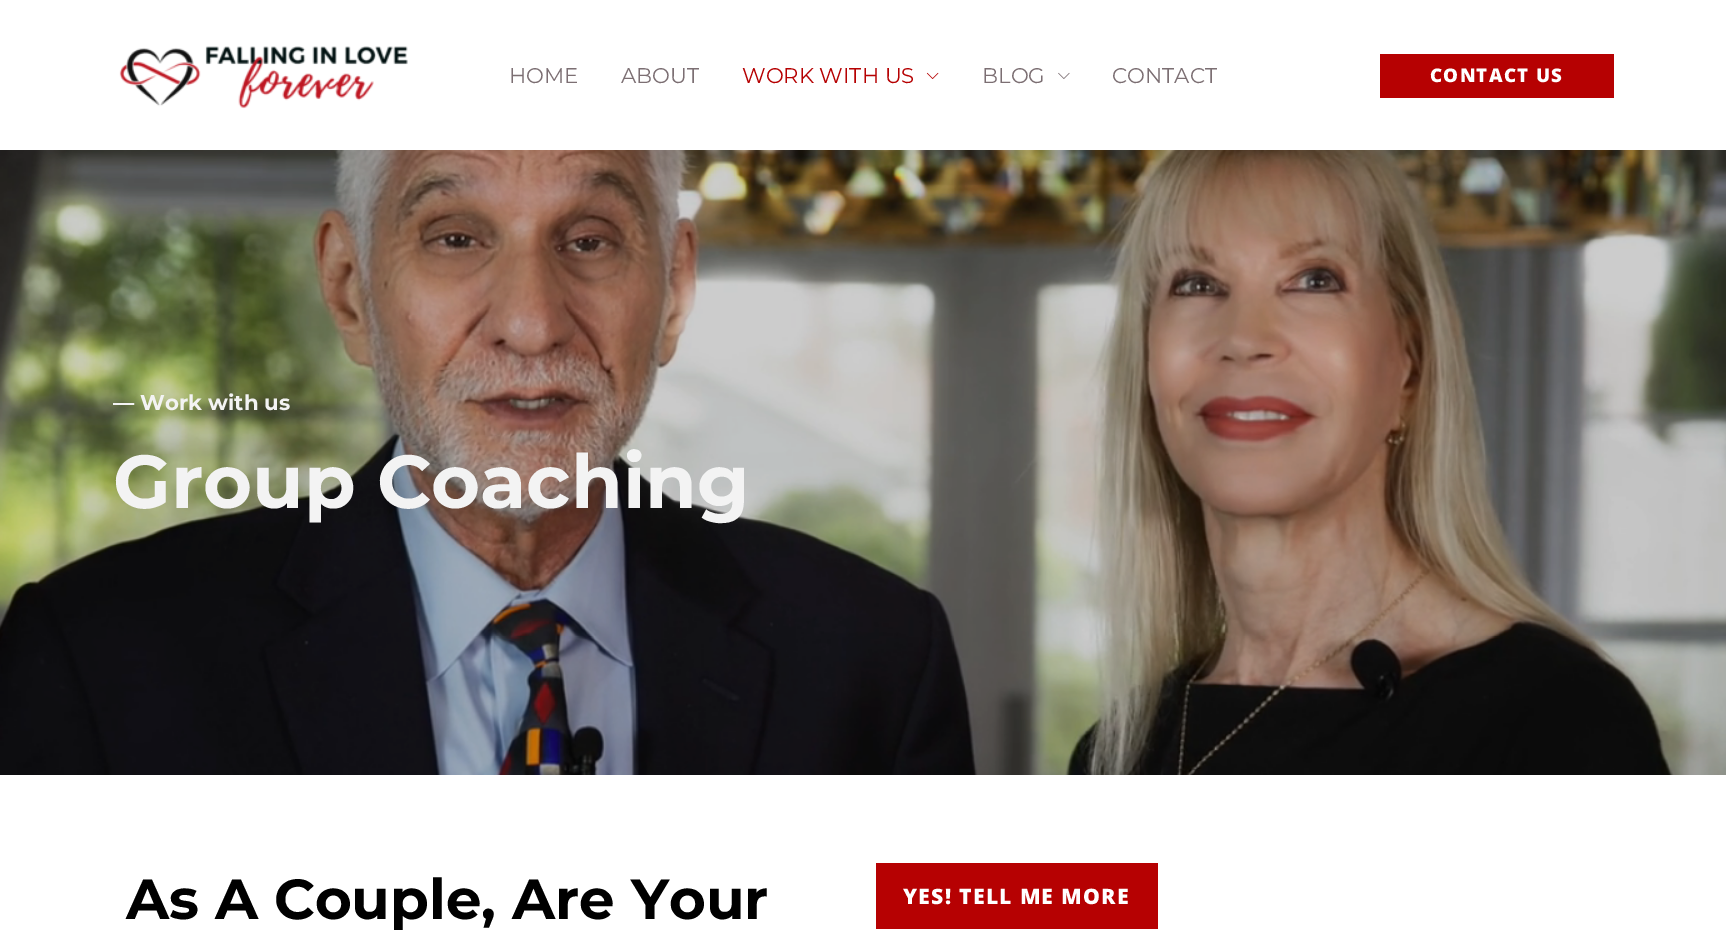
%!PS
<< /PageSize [1726 932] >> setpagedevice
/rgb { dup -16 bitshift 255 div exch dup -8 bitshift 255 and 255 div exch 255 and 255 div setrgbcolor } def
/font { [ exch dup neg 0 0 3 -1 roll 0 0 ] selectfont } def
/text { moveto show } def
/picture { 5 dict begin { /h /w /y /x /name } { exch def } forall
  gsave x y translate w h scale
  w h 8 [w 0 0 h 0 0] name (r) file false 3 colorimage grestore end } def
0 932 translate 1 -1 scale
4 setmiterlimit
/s1 { /Montserrat-Thin 21.25 font 16#7C6F73 rgb } def
/s2 { /Montserrat-Thin 21.25 font 16#B60102 rgb } def
/s3 { /Montserrat-Bold 21.25 font 16#F3F3F3 rgb } def
/s4 { /Montserrat-Bold 75 font 16#F3F3F3 rgb } def
/s5 { /Montserrat-Bold 56.25 font 16#000000 rgb } def
16#FFFFFF rgb
0 0 1726 932 rectfill
(pic1.raw) 119 46 289 63 picture
s1
(HOME) 509 83 text
(ABOUT) 621 83 text
s2
(WORK WITH US) 742 83 text
(pic2.raw) 926 72 13 7 picture
s1
(BLOG) 982 83 text
(pic3.raw) 1058 72 12 7 picture
(CONTACT) 1112 83 text
16#B60102 rgb
1380 54 234 44 rectfill
/OpenSans-ExtraBold 18.75 font
16#FFFFFF rgb
1430 82 moveto 1.25 0 (CONTACT US) ashow
(pic4.raw) 0 150 1726 625 picture
s3
(— Work with us) 113 410 text
s4
(Group Coaching) 113 508 text
s5
(As A Couple, Are Your) 126 919 text
16#B60102 rgb
876 863 282 66 rectfill
/OpenSans-ExtraBold 21.25 font
16#FFFFFF rgb
903 904 moveto 1.25 0 (YES! TELL ME MORE) ashow
showpage
